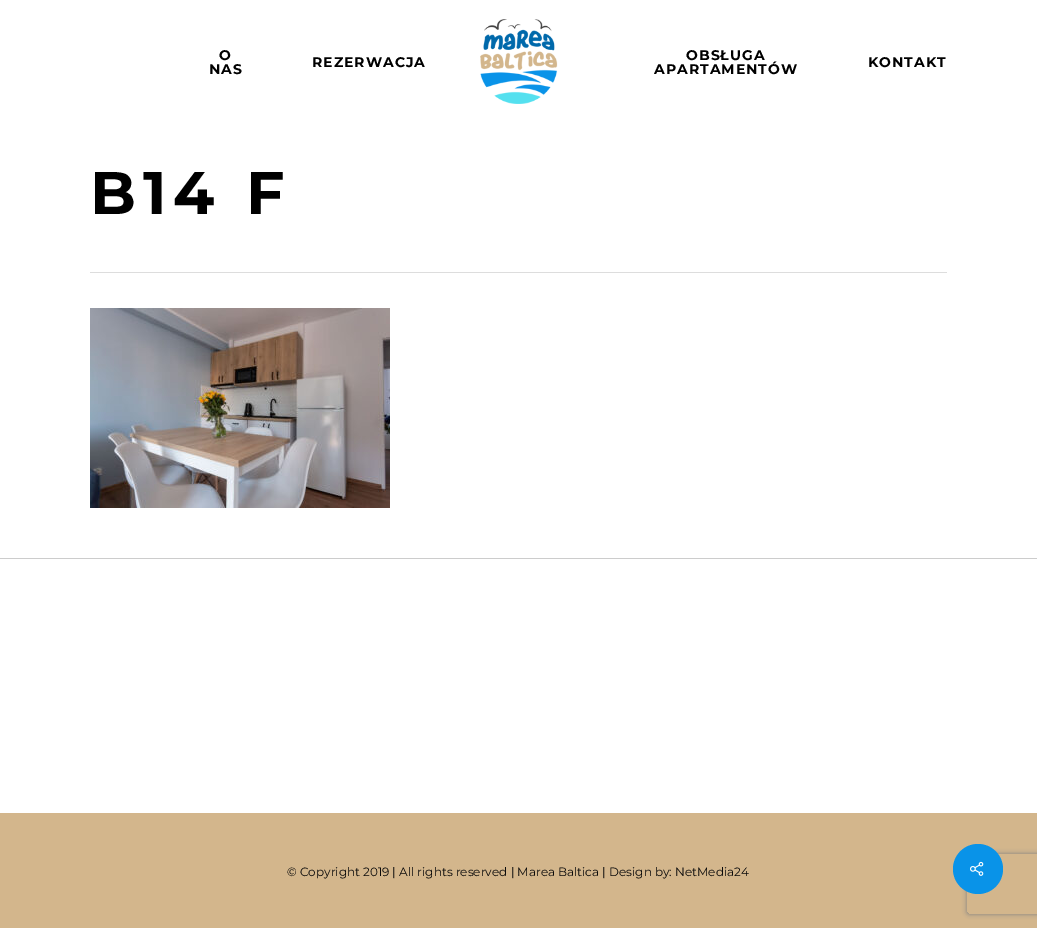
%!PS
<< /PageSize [1037 928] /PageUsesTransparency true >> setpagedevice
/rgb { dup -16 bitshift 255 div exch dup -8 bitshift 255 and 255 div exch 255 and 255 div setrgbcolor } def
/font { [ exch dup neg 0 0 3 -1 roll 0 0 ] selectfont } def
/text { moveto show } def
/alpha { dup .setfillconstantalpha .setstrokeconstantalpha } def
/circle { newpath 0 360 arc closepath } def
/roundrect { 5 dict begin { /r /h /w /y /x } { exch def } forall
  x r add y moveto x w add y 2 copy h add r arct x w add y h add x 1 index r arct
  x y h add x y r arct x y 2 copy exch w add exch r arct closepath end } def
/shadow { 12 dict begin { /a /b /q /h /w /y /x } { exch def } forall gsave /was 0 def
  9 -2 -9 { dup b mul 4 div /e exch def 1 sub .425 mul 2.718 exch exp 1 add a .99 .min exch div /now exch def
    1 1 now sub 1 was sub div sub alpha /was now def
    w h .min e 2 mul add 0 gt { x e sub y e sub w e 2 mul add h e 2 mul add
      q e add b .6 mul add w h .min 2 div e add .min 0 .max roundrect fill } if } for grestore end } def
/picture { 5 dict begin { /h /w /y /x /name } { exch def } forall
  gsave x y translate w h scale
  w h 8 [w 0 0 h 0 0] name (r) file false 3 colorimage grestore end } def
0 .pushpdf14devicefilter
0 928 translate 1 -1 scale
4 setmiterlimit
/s1 { /Montserrat-Regular 12 font 16#0A0A0A rgb } def
16#FFFFFF rgb
0 0 1037 928 rectfill
(pic1.raw) 480 19 78 85 picture
/Montserrat-Bold 14 font
16#000000 rgb
219 60 moveto 1 0 (O) ashow
209 74 moveto 1 0 (NAS) ashow
312 67 moveto 1 0 (REZERWACJA) ashow
686 60 moveto 1 0 (OBSŁUGA) ashow
654 74 moveto 1 0 (APARTAMENTÓW) ashow
868 67 moveto 1 0 (KONTAKT) ashow
16#DDDDDD rgb
90 272 857 1 rectfill
/Montserrat-Bold 60 font
16#000000 rgb
90 214 moveto 7 0 (B14 F) ashow
(pic2.raw) 90 308 300 200 picture
16#CCCCCC rgb
0 558 1037 1 rectfill
16#D3B68C rgb
0 813 1037 115 rectfill
s1
(© Copyright 2019 | All rights reserved | Marea Baltica | Design by: NetMedia24) 287 876 text
gsave
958 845 moveto 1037 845 lineto 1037 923 lineto 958 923 lineto closepath 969 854 moveto 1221 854 lineto 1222 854 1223 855 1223 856 curveto 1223 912 lineto 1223 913 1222 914 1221 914 curveto 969 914 lineto 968 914 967 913 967 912 curveto 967 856 lineto 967 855 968 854 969 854 curveto closepath eoclip newpath
16#808080 rgb
967 854 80 60 2 2.5 1 shadow
grestore
16#0993E8 rgb
978 869 25 circle fill
(pic3.raw) 970 861 14 15 picture
.poppdf14devicefilter showpage
